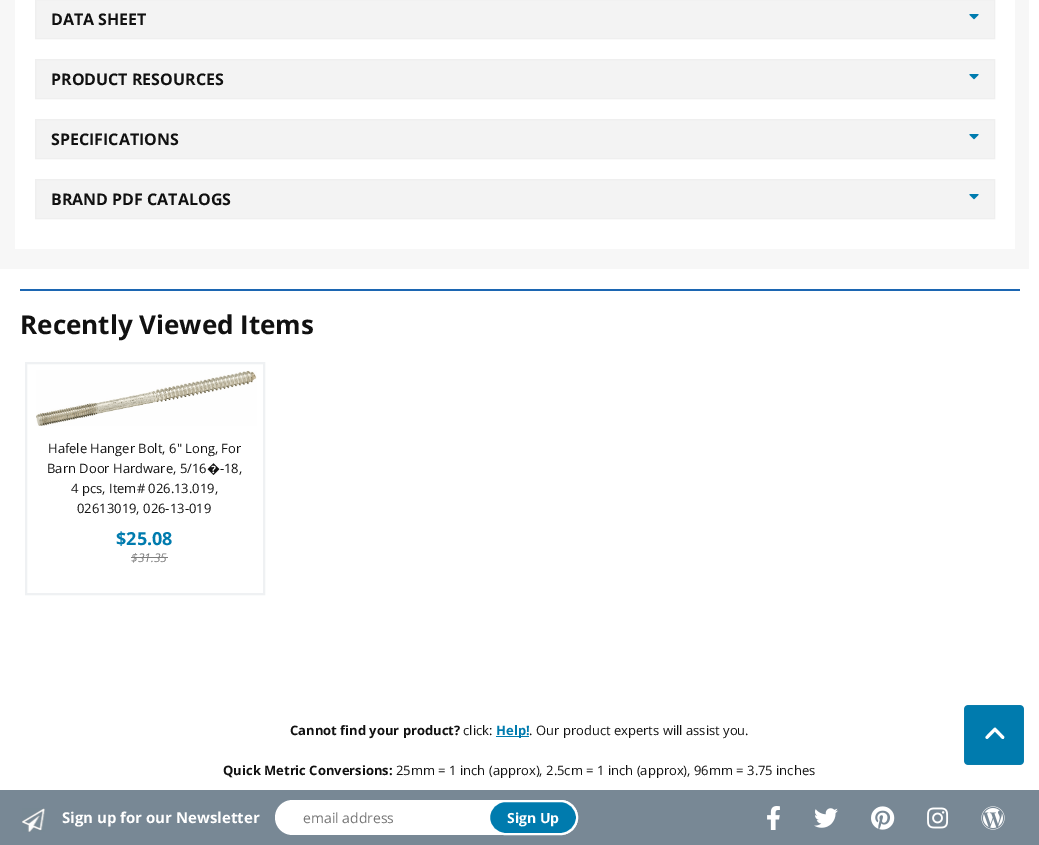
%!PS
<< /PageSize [1039 845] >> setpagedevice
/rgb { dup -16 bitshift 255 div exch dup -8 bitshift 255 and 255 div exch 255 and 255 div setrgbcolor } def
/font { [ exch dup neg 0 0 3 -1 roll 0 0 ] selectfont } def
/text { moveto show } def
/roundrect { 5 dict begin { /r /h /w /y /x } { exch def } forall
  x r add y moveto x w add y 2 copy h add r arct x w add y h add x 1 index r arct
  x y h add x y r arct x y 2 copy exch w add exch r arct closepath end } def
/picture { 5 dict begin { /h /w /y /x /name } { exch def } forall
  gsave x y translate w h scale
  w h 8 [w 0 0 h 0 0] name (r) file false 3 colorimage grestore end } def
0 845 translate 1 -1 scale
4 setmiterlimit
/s1 { /OpenSans-Bold 16 font 16#111111 rgb } def
/s2 { /OpenSans-Bold 26 font 16#111111 rgb } def
/s3 { /OpenSans-Regular 13 font 16#111111 rgb } def
/s4 { /OpenSans-Bold 18 font 16#007BAE rgb } def
/s5 { /OpenSans-Italic 12 font 16#7E7E7E rgb } def
/s6 { /OpenSans-Bold 13 font 16#111111 rgb } def
/s7 { /OpenSans-Bold 13 font 16#007BAE rgb } def
/s8 { /OpenSans-Bold 15 font 16#FFFFFF rgb } def
/s9 { /OpenSans-Regular 14 font 16#757575 rgb } def
/s10 { /OpenSans-Bold 14 font 16#FFFFFF rgb } def
16#FFFFFF rgb
0 0 1039 845 rectfill
16#F7F7F7 rgb
0 0 1029 269 rectfill
16#FFFFFF rgb
15 0 1000 249 rectfill
16#F3F3F3 rgb
35.5 -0.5 moveto 994.5 -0.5 lineto 994.5 38.5 lineto 35.5 38.5 lineto closepath gsave fill grestore
16#EFEFEF rgb
stroke
s1
(DATA SHEET) 51 25 text
(pic1.raw) 969 14 10 6 picture
16#F3F3F3 rgb
35.5 59.5 moveto 994.5 59.5 lineto 994.5 98.5 lineto 35.5 98.5 lineto closepath gsave fill grestore
16#EFEFEF rgb
stroke
s1
(PRODUCT RESOURCES) 51 85 text
(pic1.raw) 969 74 10 6 picture
16#F3F3F3 rgb
35.5 119.5 moveto 994.5 119.5 lineto 994.5 158.5 lineto 35.5 158.5 lineto closepath gsave fill grestore
16#EFEFEF rgb
stroke
s1
(SPECIFICATIONS) 51 145 text
(pic1.raw) 969 134 10 6 picture
16#F3F3F3 rgb
35.5 179.5 moveto 994.5 179.5 lineto 994.5 218.5 lineto 35.5 218.5 lineto closepath gsave fill grestore
16#EFEFEF rgb
stroke
s1
(BRAND PDF CATALOGS) 51 205 text
(pic1.raw) 969 194 10 6 picture
16#1C66B2 rgb
20 289 1000 2 rectfill
s2
(Recently Viewed Items) 20 334 text
16#EFF1F3 rgb
2 setlinewidth
26 363 238 231 rectstroke
(pic2.raw) 36 370 221 56 picture
s3
(Hafele Hanger Bolt, 6" Long, For) 48 453 text
(Barn Door Hardware, 5/16�-18,) 47 473 text
(4 pcs, Item# 026.13.019,) 71 493 text
(02613019, 026-13-019) 77 513 text
s4
($25.08) 116 545 text
s5
($31.35) 131 562 text
131 557 37 1 rectfill
s6
(Cannot find your product?) 290 735 text
s3
(click:) 463 735 text
16#007BAE rgb
496 736 33 1 rectfill
s7
(Help!) 496 735 text
s3
(. Our product experts will assist you.) 529 735 text
s6
(Quick Metric Conversions:) 223 775 text
s3
(25mm = 1 inch \(approx\), 2.5cm = 1 inch \(approx\), 96mm = 3.75 inches) 396 775 text
16#788895 rgb
0 790 1039 55 rectfill
(pic3.raw) 22 808 23 24 picture
s8
(Sign up for our Newsletter) 62 823 text
275 800 303 35 17.5 roundrect fill
s9
(email address) 303 823 text
16#007BAE rgb
489 801 88 33 16.5 roundrect gsave fill grestore
16#FFFFFF rgb
stroke
s10
(Sign Up) 507 823 text
(pic4.raw) 767 806 13 24 picture
(pic5.raw) 814 808 24 20 picture
(pic6.raw) 871 806 24 24 picture
(pic7.raw) 927 807 22 22 picture
(pic8.raw) 981 806 24 24 picture
(pic9.raw) 964 705 60 60 picture
showpage
